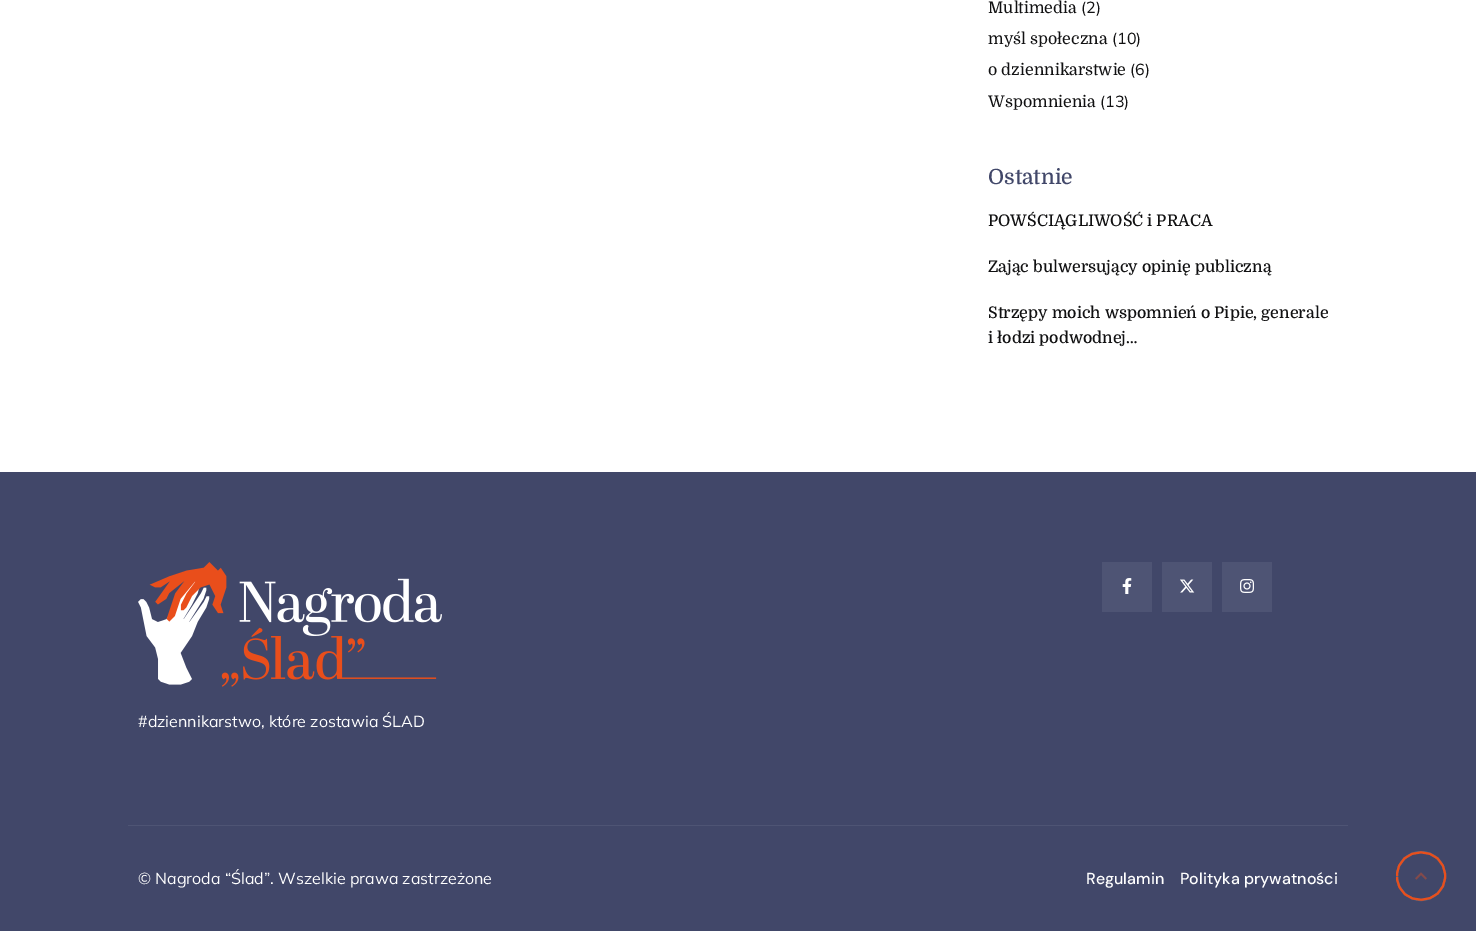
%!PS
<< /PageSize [1476 931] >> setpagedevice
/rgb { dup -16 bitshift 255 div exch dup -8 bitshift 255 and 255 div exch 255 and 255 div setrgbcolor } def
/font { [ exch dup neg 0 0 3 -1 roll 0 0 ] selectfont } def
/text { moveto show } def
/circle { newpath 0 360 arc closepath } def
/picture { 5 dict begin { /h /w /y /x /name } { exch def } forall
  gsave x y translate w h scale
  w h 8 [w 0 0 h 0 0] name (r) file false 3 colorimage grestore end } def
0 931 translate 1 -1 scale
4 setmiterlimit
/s1 { /Domine-Regular 16 font 16#111112 rgb } def
/s2 { /Mulish-Regular 16 font 16#111112 rgb } def
/s3 { /Domine-Medium 21 font 16#414769 rgb } def
/s4 { /Domine-Medium 16 font 16#111112 rgb } def
/s5 { /Mulish-Regular 16 font 16#FFFFFF rgb } def
/s6 { /DMSans-Medium 16 font 16#FFFFFF rgb } def
16#FFFFFF rgb
0 0 1476 931 rectfill
s1
(Multimedia) 988 13 text
s2
(\(2\)) 1081 13 text
s1
(myśl społeczna) 988 44 text
s2
(\(10\)) 1112 44 text
s1
(o dziennikarstwie) 988 75 text
s2
(\(6\)) 1130 75 text
s1
(Wspomnienia) 988 107 text
s2
(\(13\)) 1100 107 text
s3
(Ostatnie) 988 184 text
s4
(POWŚCIĄGLIWOŚĆ i PRACA) 988 226 text
(Zając bulwersujący opinię publiczną) 988 272 text
(Strzępy moich wspomnień o Pipie, generale) 988 318 text
(i łodzi podwodnej…) 988 343 text
16#414769 rgb
0 472 1476 459 rectfill
16#4E5474 rgb
1102 562 50 50 rectfill
(pic1.raw) 1122 578 10 16 picture
1162 562 50 50 rectfill
(pic2.raw) 1180 579 15 14 picture
1222 562 50 50 rectfill
(pic3.raw) 1240 579 14 14 picture
(pic4.raw) 138 562 304 125 picture
s5
(#dziennikarstwo, które zostawia ŚLAD) 138 727 text
16#4E5474 rgb
128 825 1220 1 rectfill
s5
(© Nagroda “Ślad”. Wszelkie prawa zastrzeżone) 138 884 text
s6
(Regulamin) 1086 884 text
(Polityka prywatności) 1180 884 text
16#5D6179 rgb
2 setlinewidth
1421 876 24 circle stroke
(pic5.raw) 1415 872 12 8 picture
16#E84F1C rgb
1397 876 moveto 1397 844.5 1445 844.5 1445 876 curveto 1445 907 1398 908 1397 877 curveto stroke
showpage
